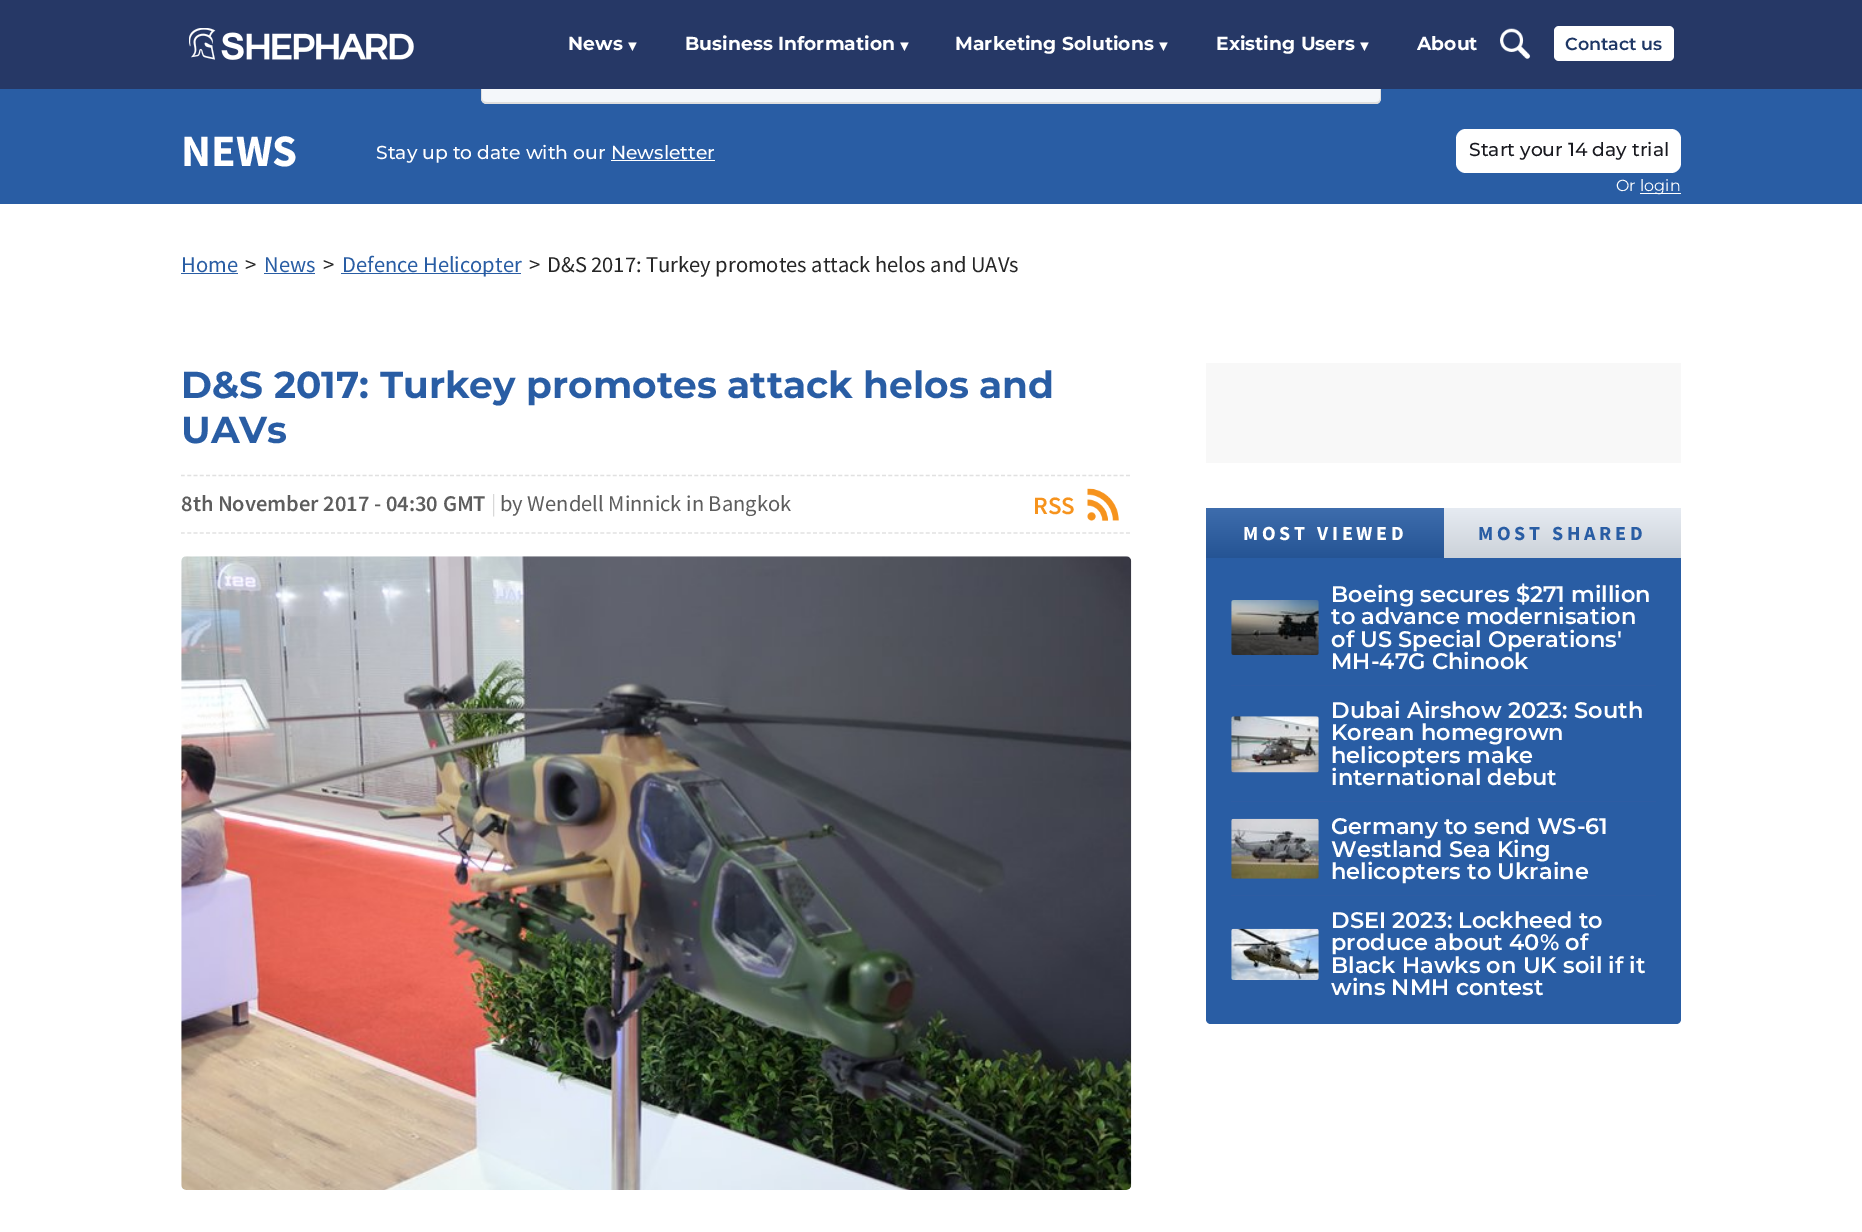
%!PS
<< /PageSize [1862 1232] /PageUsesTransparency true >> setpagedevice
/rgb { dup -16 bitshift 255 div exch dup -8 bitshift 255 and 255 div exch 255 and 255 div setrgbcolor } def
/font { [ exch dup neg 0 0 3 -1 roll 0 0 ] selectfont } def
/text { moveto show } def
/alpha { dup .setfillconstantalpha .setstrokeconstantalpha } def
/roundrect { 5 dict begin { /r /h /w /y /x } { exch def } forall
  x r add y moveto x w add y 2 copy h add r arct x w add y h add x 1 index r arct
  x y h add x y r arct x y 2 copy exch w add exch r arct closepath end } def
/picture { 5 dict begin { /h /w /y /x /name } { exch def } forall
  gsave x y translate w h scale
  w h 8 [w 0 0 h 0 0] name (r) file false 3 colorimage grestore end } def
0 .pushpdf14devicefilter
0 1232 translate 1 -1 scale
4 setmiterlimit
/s1 { /Montserrat-Bold 18.75 font 16#FFFFFF rgb } def
/s2 { /LiberationSans-Bold 15 font 16#FFFFFF rgb } def
/s3 { /Montserrat-SemiBold 17.5 font 16#1E3765 rgb } def
/s4 { /SourceSansPro-Bold 45 font 16#FFFFFF rgb } def
/s5 { /Montserrat-Medium 18.75 font 16#FFFFFF rgb } def
/s6 { /Montserrat-Medium 18.75 font 16#18191F rgb } def
/s7 { /Montserrat-Thin 16 font 16#FFFFFF rgb } def
/s8 { /SourceSansPro-Regular 22.5 font 16#295DA4 rgb } def
/s9 { /SourceSansPro-Regular 22.5 font 16#262626 rgb } def
/s10 { /Montserrat-Bold 37.5 font 16#295DA4 rgb } def
/s11 { /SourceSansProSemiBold-SemiBold 22.5 font 16#5D5D5D rgb } def
/s12 { /SourceSansPro-Regular 22.5 font 16#D8D8D8 rgb } def
/s13 { /SourceSansPro-Regular 22.5 font 16#5D5D5D rgb } def
/s14 { /SourceSansProSemiBold-SemiBold 25 font 16#F6931D rgb } def
/s15 { /Montserrat-SemiBold 22.5 font 16#FFFFFF rgb } def
16#FFFFFF rgb
0 0 1862 1232 rectfill
16#295DA4 rgb
0 89 1862 115 rectfill
0.95 alpha
16#FFFFFF rgb
481 0 moveto 1381 0 lineto 1381 98 lineto 1381 101.5 1378.5 104 1375 104 curveto 487 104 lineto 483.5 104 481 101.5 481 98 curveto closepath fill
16#DDDDDC rgb
481 0 moveto 1381 0 lineto 1381 98 lineto 1381 101 1379 104 1376 104 curveto 487 104 lineto 484 104 481 101 481 98 curveto closepath 482 0 moveto 1380 0 lineto 1380 98 lineto 1380 101 1378 102 1376 102 curveto 487 102 lineto 484 102 482 101 482 98 curveto closepath eofill
1 alpha
16#263866 rgb
0 0 1862 89 rectfill
(pic1.raw) 189 28 225 32 picture
s1
(News) 568 50 text
s2
(▼) 625 51 text
s1
(Business Information) 685 50 text
s2
(▼) 897 51 text
s1
(Marketing Solutions) 955 50 text
s2
(▼) 1156 51 text
s1
(Existing Users) 1216 50 text
s2
(▼) 1357 51 text
s1
(About) 1417 50 text
(pic2.raw) 1500 28 31 31 picture
1554 26 120 35 5 roundrect fill
s3
(Contact us) 1565 50 text
s4
(NEWS) 181 166 text
s5
(Stay up to date with our Newsletter) 376 159 text
611 160 104 1 rectfill
1456 129 225 44 10 roundrect fill
s6
(Start your 14 day trial) 1469 156 text
s7
(Or) 1616 191 text
1640 193 41 1 rectfill
(login) 1640 191 text
s8
(Home) 181 272 text
181 273 57 1 rectfill
s9
(>) 245 272 text
s8
(News) 264 272 text
264 273 51 1 rectfill
s9
(>) 323 272 text
16#295DA4 rgb
341 273 180 1 rectfill
(Defence Helicopter) 342 272 text
s9
(>) 529 272 text
(D&S 2017: Turkey promotes attack helos and UAVs) 547 272 text
s10
(D&S 2017: Turkey promotes attack helos and) 181 398 text
(UAVs) 181 443 text
16#E1E1E1 rgb
1.2 setlinewidth
[3.75 2.51] 0 setdash
181 475.5 moveto 1131 475.5 lineto stroke
181 533 moveto 1131 533 lineto stroke
s11
(8th November 2017 - 04:30 GMT) 181 511 text
s12
(|) 491 511 text
s13
(by Wendell Minnick in Bangkok) 500 511 text
(pic3.raw) 1087 488 32 33 picture
s14
(RSS) 1033 514 text
(pic4.raw) 181 556 951 634 picture
16#F8F8F8 rgb
1206 363 475 100 rectfill
16#295DA4 rgb
1206 508 moveto 1681 508 lineto 1681 1019 lineto 1681 1022 1679 1024 1676 1024 curveto 1211 1024 lineto 1208 1024 1206 1022 1206 1019 curveto closepath fill
gsave 1206 508 moveto 1444 508 lineto 1444 558 lineto 1206 558 lineto closepath clip newpath
<< /ShadingType 2 /ColorSpace /DeviceRGB /Coords [1325 508 1325 558] /Extend [true true] /Function << /FunctionType 2 /Domain [0 1] /C0 [0.243 0.427 0.678] /C1 [0.145 0.329 0.58] /N 1 >> >> shfill grestore
/SourceSansPro-Bold 20 font
16#FFFFFF rgb
1243 540 moveto 3.75 0 (MOST VIEWED) ashow
gsave 1444 508 moveto 1681 508 lineto 1681 558 lineto 1444 558 lineto closepath clip newpath
<< /ShadingType 2 /ColorSpace /DeviceRGB /Coords [1563 508 1563 558] /Extend [true true] /Function << /FunctionType 2 /Domain [0 1] /C0 [0.902 0.922 0.949] /C1 [0.8 0.824 0.851] /N 1 >> >> shfill grestore
16#295DA4 rgb
1478 540 moveto 3.75 0 (MOST SHARED) ashow
16#2E5CA3 rgb
1231 685 425 1 rectfill
(pic5.raw) 1231 600 88 55 picture
s15
(Boeing secures $271 million) 1331 602 text
(to advance modernisation) 1331 624 text
(of US Special Operations') 1331 647 text
(MH-47G Chinook) 1331 669 text
16#2E5CA3 rgb
1231 801 425 1 rectfill
(pic6.raw) 1231 716 88 57 picture
s15
(Dubai Airshow 2023: South) 1331 718 text
(Korean homegrown) 1331 740 text
(helicopters make) 1331 763 text
(international debut) 1331 785 text
16#2E5CA3 rgb
1231 895 425 1 rectfill
(pic7.raw) 1231 818 88 61 picture
s15
(Germany to send WS-61) 1331 834 text
(Westland Sea King) 1331 857 text
(helicopters to Ukraine) 1331 879 text
(pic8.raw) 1231 928 88 52 picture
(DSEI 2023: Lockheed to) 1331 928 text
(produce about 40% of) 1331 950 text
(Black Hawks on UK soil if it) 1331 973 text
(wins NMH contest) 1331 995 text
.poppdf14devicefilter showpage
